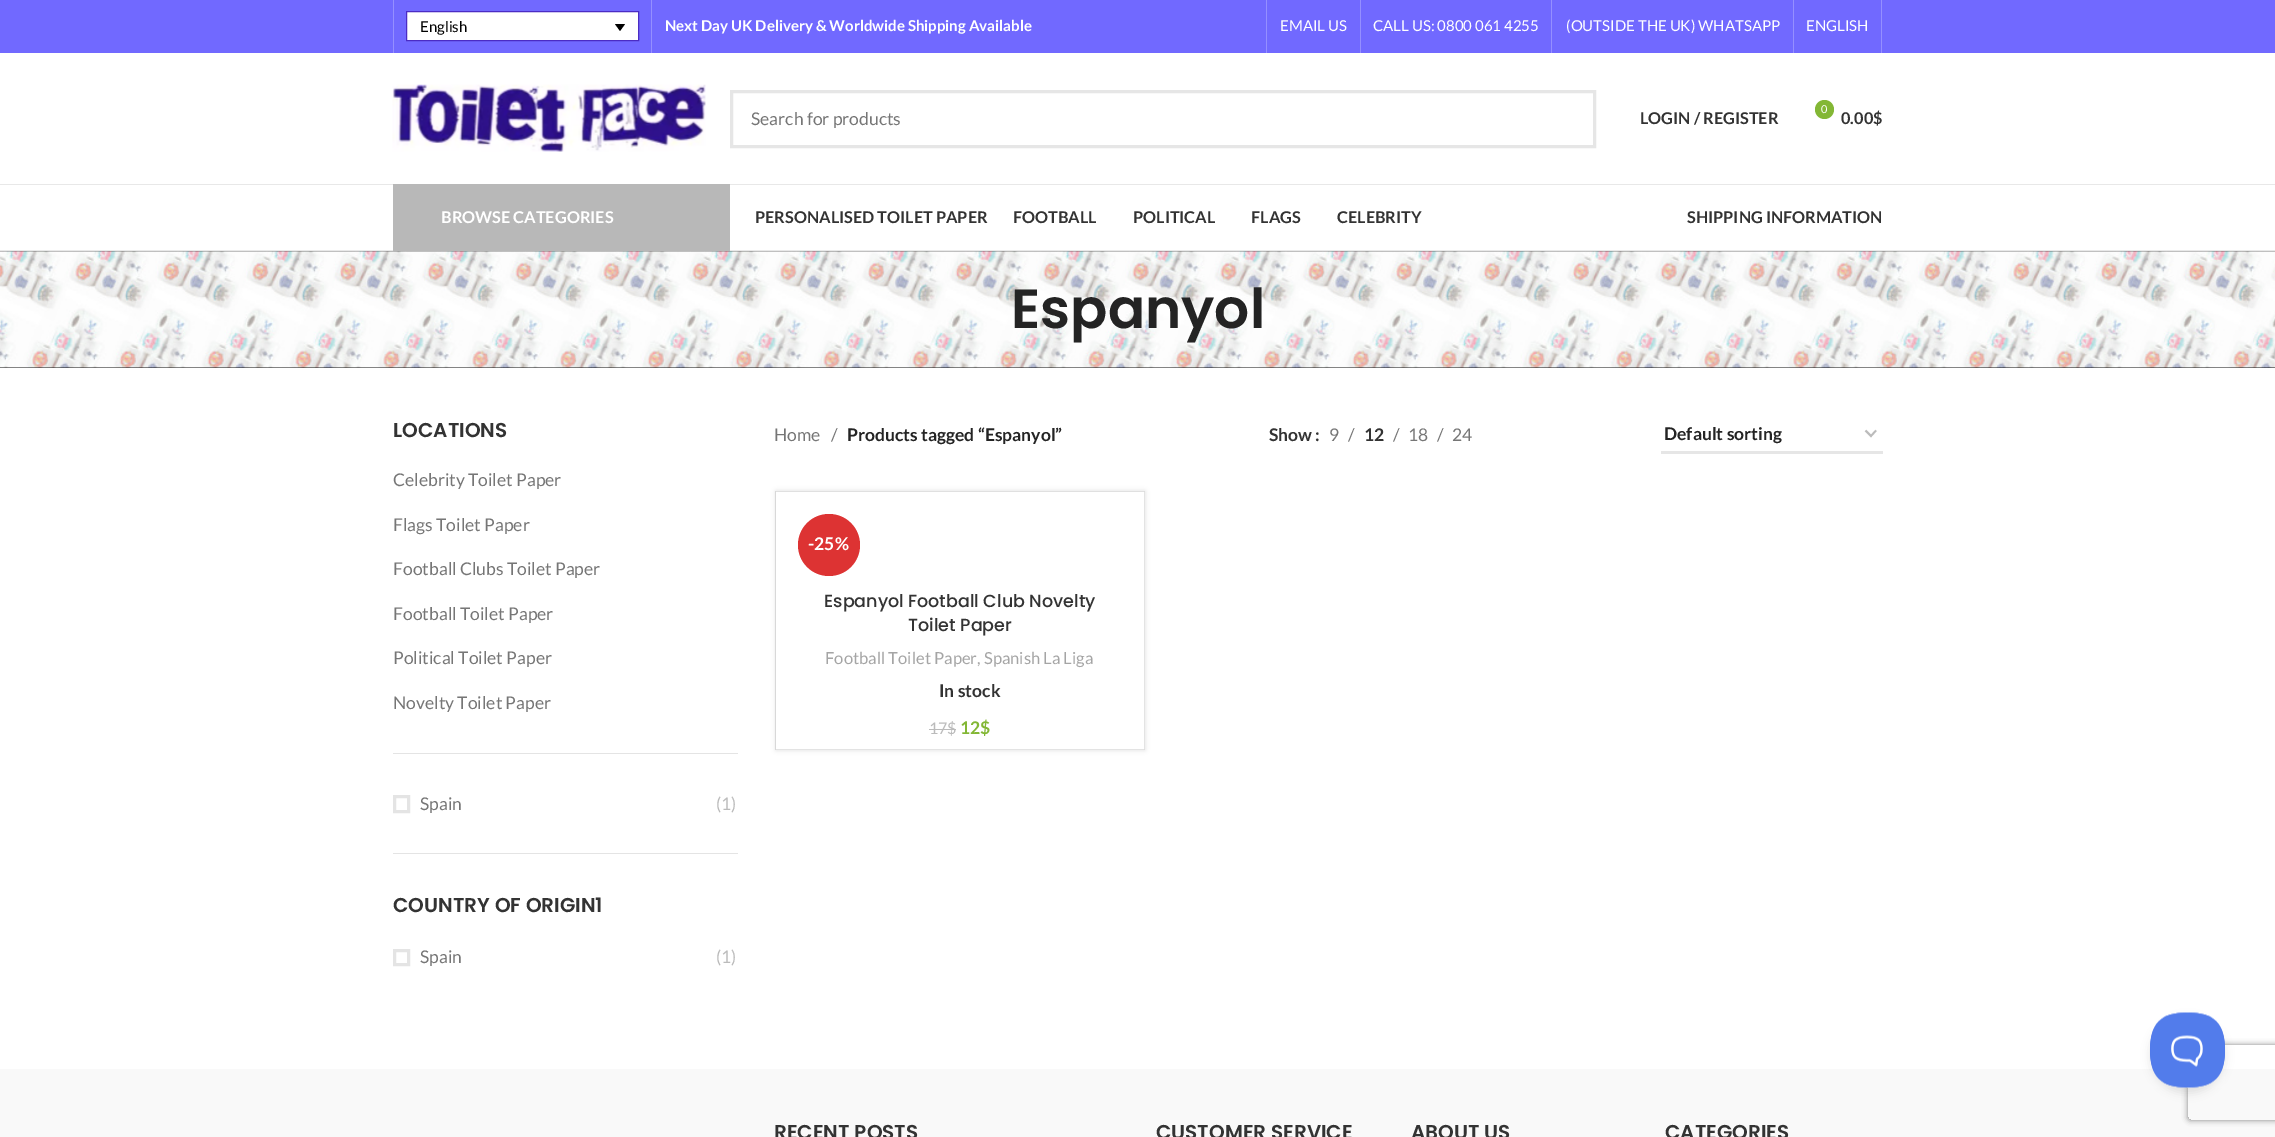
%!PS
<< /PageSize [2275 1137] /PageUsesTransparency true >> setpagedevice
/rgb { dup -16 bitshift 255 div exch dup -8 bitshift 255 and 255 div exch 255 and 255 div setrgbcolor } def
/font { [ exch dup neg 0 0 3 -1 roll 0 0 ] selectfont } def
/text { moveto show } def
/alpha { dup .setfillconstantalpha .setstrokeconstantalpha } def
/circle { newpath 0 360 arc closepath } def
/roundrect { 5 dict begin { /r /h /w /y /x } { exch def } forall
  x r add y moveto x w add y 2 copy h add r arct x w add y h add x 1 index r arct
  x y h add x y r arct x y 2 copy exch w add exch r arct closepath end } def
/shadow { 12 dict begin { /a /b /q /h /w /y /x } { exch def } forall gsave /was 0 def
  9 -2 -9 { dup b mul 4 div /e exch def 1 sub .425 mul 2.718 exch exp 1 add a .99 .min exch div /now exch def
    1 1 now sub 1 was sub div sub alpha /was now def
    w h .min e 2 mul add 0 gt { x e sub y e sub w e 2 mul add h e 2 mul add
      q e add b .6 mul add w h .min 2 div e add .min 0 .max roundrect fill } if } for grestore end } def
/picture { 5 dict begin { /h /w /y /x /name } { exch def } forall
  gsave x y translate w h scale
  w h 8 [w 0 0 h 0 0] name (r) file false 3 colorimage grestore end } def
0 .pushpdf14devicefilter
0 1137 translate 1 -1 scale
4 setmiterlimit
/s1 { /Lato-Regular 15 font 16#000000 rgb } def
/s2 { /Lato-Bold 15 font 16#FFFFFF rgb } def
/s3 { /Lato-Regular 15 font 16#FFFFFF rgb } def
/s4 { /Lato-Regular 17.5 font 16#767676 rgb } def
/s5 { /Lato-Bold 16.25 font 16#333333 rgb } def
/s6 { /Lato-Regular 11 font 16#FFFFFF rgb } def
/s7 { /Lato-Bold 16.25 font 16#FFFFFF rgb } def
/s8 { /Poppins-SemiBold 55 font 16#242424 rgb } def
/s9 { /Poppins-SemiBold 20 font 16#333333 rgb } def
/s10 { /Lato-Regular 17.5 font 16#BBBBBB rgb } def
/s11 { /Lato-Bold 17.5 font 16#242424 rgb } def
/s12 { /Lato-Bold 17.5 font 16#333333 rgb } def
/s13 { /Lato-Bold 17.5 font 16#FFFFFF rgb } def
/s14 { /Poppins-Medium 17.5 font 16#333333 rgb } def
/s15 { /Lato-Regular 16.6 font 16#A5A5A5 rgb } def
/s16 { /Lato-Regular 16 font 16#BBBBBB rgb } def
/s17 { /Lato-Bold 17.5 font 16#83B735 rgb } def
16#FFFFFF rgb
0 0 2275 1137 rectfill
16#7169FF rgb
0 0 2275 53 rectfill
16#958FFF rgb
393 0 1 53 rectfill
16#FFFFFF rgb
406.5 11.5 moveto 638.5 11.5 lineto 638.5 40.5 lineto 406.5 40.5 lineto closepath gsave fill grestore
16#4B2CC4 rgb
stroke
s1
(English) 420 32 text
615 24 moveto 625 24 lineto 620 31 lineto closepath fill
16#958FFF rgb
651 0 1 53 rectfill
s2
(Next Day UK Delivery & Worldwide Shipping Available) 665 31 text
16#958FFF rgb
1266 0 1 53 rectfill
s3
(EMAIL US) 1280 31 text
16#958FFF rgb
1360 0 1 53 rectfill
s3
(CALL US: 0800 061 4255) 1373 31 text
16#958FFF rgb
1551 0 1 53 rectfill
s3
(\(OUTSIDE THE UK\) WHATSAPP) 1566 31 text
16#958FFF rgb
1793 0 1 53 rectfill
s3
(ENGLISH) 1806 31 text
16#958FFF rgb
1881 0 1 53 rectfill
16#E8E8E8 rgb
0 184 2275 1 rectfill
(pic1.raw) 392 84 314 68 picture
16#E6E6E6 rgb
3 setlinewidth
731.5 91.5 863 55 rectstroke
s4
(Search for products) 751 125 text
s5
(LOGIN / REGISTER) 1640 124 text
16#83B735 rgb
1824.5 109.5 9.5 circle fill
s6
(0) 1821 113 text
s5
(0.00$) 1841 124 text
16#E8E8E8 rgb
0 250 2275 1 rectfill
16#B8B8B8 rgb
393 184 337 67 rectfill
s7
(BROWSE CATEGORIES) 441 223 text
s5
(PERSONALISED TOILET PAPER) 755 223 text
(FOOTBALL) 1013 223 text
(POLITICAL) 1133 223 text
(FLAGS) 1251 223 text
(CELEBRITY) 1337 223 text
(SHIPPING INFORMATION) 1687 223 text
16#0A0A0A rgb
0 251 2275 117 rectfill
(pic2.raw) 0 251 2275 117 picture
s8
(Espanyol) 1011 328 text
16#E4E4E4 rgb
393 753 345 1 rectfill
s9
(LOCATIONS) 393 437 text
s4
(Celebrity Toilet Paper) 393 486 text
(Flags Toilet Paper) 393 531 text
(Football Clubs Toilet Paper) 393 575 text
(Football Toilet Paper) 393 620 text
(Political Toilet Paper) 393 664 text
(Novelty Toilet Paper) 393 709 text
16#E4E4E4 rgb
393 853 345 1 rectfill
394.5 796.5 14 15 rectstroke
s4
(Spain) 420 810 text
s10
(\(1\)) 716 810 text
s9
(COUNTRY OF ORIGIN1) 393 912 text
16#E4E4E4 rgb
394.5 950.5 14 14 rectstroke
s4
(Spain) 420 963 text
s10
(\(1\)) 716 963 text
s4
(Home) 774 441 text
(/) 831 441 text
s11
(Products tagged “Espanyol”) 847 441 text
s12
(Show :) 1269 441 text
s4
(9) 1329 441 text
(/) 1348 441 text
s12
(12) 1364 441 text
s4
(/) 1393 441 text
(18) 1408 441 text
(/) 1437 441 text
(24) 1452 441 text
16#BBBBBB rgb
1.8 setlinewidth
1865.5 430.5 moveto 1871 436 lineto 1876 430.5 lineto stroke
16#E6E6E6 rgb
1661 451 222 3 rectfill
s11
(Default sorting) 1664 440 text
16#E4E4E4 rgb
775 491 1 259 rectfill
gsave
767 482 moveto 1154 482 lineto 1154 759 lineto 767 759 lineto closepath 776 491 moveto 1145 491 lineto 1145 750 lineto 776 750 lineto closepath eoclip newpath
16#000000 rgb
776 491 369 259 0 2.5 0.12 shadow
grestore
16#E0E0E0 rgb
776 491 moveto 1145 491 lineto 1144 492 lineto 776 492 lineto closepath fill
0.11 alpha
16#000000 rgb
1145 491 moveto 1145 750 lineto 1144 749 lineto 1144 492 lineto closepath fill
1145 750 moveto 776 750 lineto 776 749 lineto 1144 749 lineto closepath fill
1 alpha
16#DD3333 rgb
829 545 31 circle fill
s13
(-25%) 808 550 text
s14
(Espanyol Football Club Novelty) 824 607 text
(Toilet Paper) 908 631 text
s15
(Football Toilet Paper, Spanish La Liga) 825 664 text
s12
(In stock) 939 697 text
s16
(17) 929 734 text
929 729 19 1 rectfill
($) 947 734 text
948 729 8 1 rectfill
s17
(12$) 960 734 text
16#F9F9F9 rgb
0 1069 2275 68 rectfill
s9
(RECENT POSTS) 774 1139 text
(CUSTOMER SERVICE) 1156 1139 text
(ABOUT US) 1411 1139 text
(CATEGORIES) 1665 1139 text
16#000000 rgb
2150 1018 75 75 37.5 4.5 0.1 shadow
gsave
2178 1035 moveto 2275 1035 lineto 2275 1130 lineto 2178 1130 lineto closepath 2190.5 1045 moveto 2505.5 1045 lineto 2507 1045 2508 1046 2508 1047.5 curveto 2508 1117.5 lineto 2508 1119 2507 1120 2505.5 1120 curveto 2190.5 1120 lineto 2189 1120 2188 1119 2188 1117.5 curveto 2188 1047.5 lineto 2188 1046 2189 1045 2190.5 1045 curveto closepath eoclip newpath
16#808080 rgb
2188 1045 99 75 2.5 3 1 shadow
grestore
(pic3.raw) 2150 1012 75 76 picture
.poppdf14devicefilter showpage
